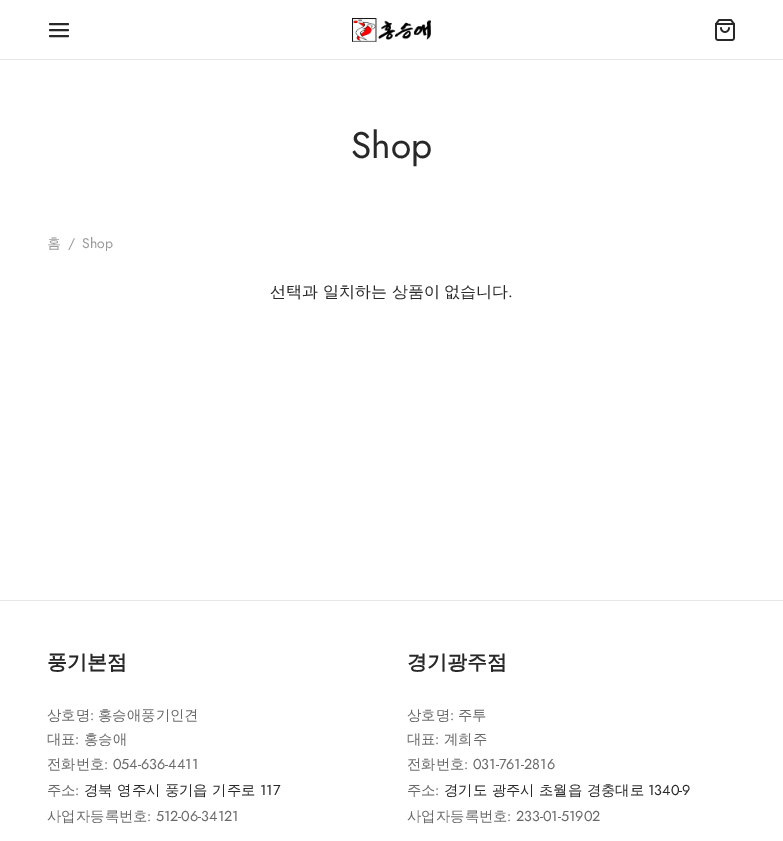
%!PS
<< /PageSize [783 841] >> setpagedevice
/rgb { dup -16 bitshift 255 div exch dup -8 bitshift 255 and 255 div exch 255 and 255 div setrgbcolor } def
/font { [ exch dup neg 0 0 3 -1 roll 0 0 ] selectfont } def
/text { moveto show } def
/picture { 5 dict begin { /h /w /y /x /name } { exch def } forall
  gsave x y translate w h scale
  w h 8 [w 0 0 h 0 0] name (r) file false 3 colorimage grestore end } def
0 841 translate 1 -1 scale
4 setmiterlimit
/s1 { /Jost-Regular 37 font 16#282828 rgb } def
/s2 { /WenQuanYiZenHei-Medium 14 font 16#999999 rgb } def
/s3 { /Jost-Regular 14 font 16#999999 rgb } def
/s4 { /WenQuanYiZenHei-Medium 16 font 16#282828 rgb } def
/s5 { /Jost-Regular 16 font 16#282828 rgb } def
/s6 { /WenQuanYiZenHei-Bold 20 font 16#282828 rgb } def
/s7 { /WenQuanYiZenHei-Medium 14.4 font 16#686868 rgb } def
/s8 { /Jost-Regular 14.4 font 16#686868 rgb } def
/s9 { /WenQuanYiZenHei-Medium 14.4 font 16#282828 rgb } def
/s10 { /Jost-Regular 14.4 font 16#282828 rgb } def
16#FFFFFF rgb
0 0 783 841 rectfill
16#282828 rgb
2 setlinewidth
1 setlinecap
1 setlinejoin
50 30 moveto 68 30 lineto 50 24 moveto 68 24 lineto 50 36 moveto 68 36 lineto stroke
(pic1.raw) 352 18 79 24 picture
(pic2.raw) 715 19 20 22 picture
16#E6E6E6 rgb
0 59 783 1 rectfill
s1
(Shop) 351 158 text
s2
(홈) 47 248 text
s3
(/) 68 248 text
(Shop) 82 248 text
s4
(선택과 일치하는 상품이 없습니다) 270 297 text
s5
(.) 508 297 text
16#E6E6E6 rgb
0 600 783 1 rectfill
s6
(풍기본점) 47 669 text
s7
(상호명) 47 720 text
s8
(:) 90 720 text
s7
(홍승애풍기인견) 98 720 text
(대표) 47 744 text
s8
(:) 75 744 text
s7
(홍승애) 84 744 text
(전화번호) 47 769 text
s8
(: 054-636-4411) 104 769 text
s7
(주소) 47 795 text
s8
(:) 75 795 text
s9
(경북 영주시 풍기읍 기주로) 84 795 text
s10
(117) 260 795 text
s7
(사업자등록번호) 47 821 text
s8
(: 512-06-34121) 147 821 text
s6
(경기광주점) 407 669 text
s7
(상호명) 407 720 text
s8
(:) 450 720 text
s7
(주투) 458 720 text
(대표) 407 744 text
s8
(:) 435 744 text
s7
(계희주) 444 744 text
(전화번호) 407 769 text
s8
(: 031-761-2816) 464 769 text
s7
(주소) 407 795 text
s8
(:) 435 795 text
s9
(경기도 광주시 초월읍 경충대로) 444 795 text
s10
(1340-9) 648 795 text
s7
(사업자등록번호) 407 821 text
s8
(: 233-01-51902) 507 821 text
showpage
